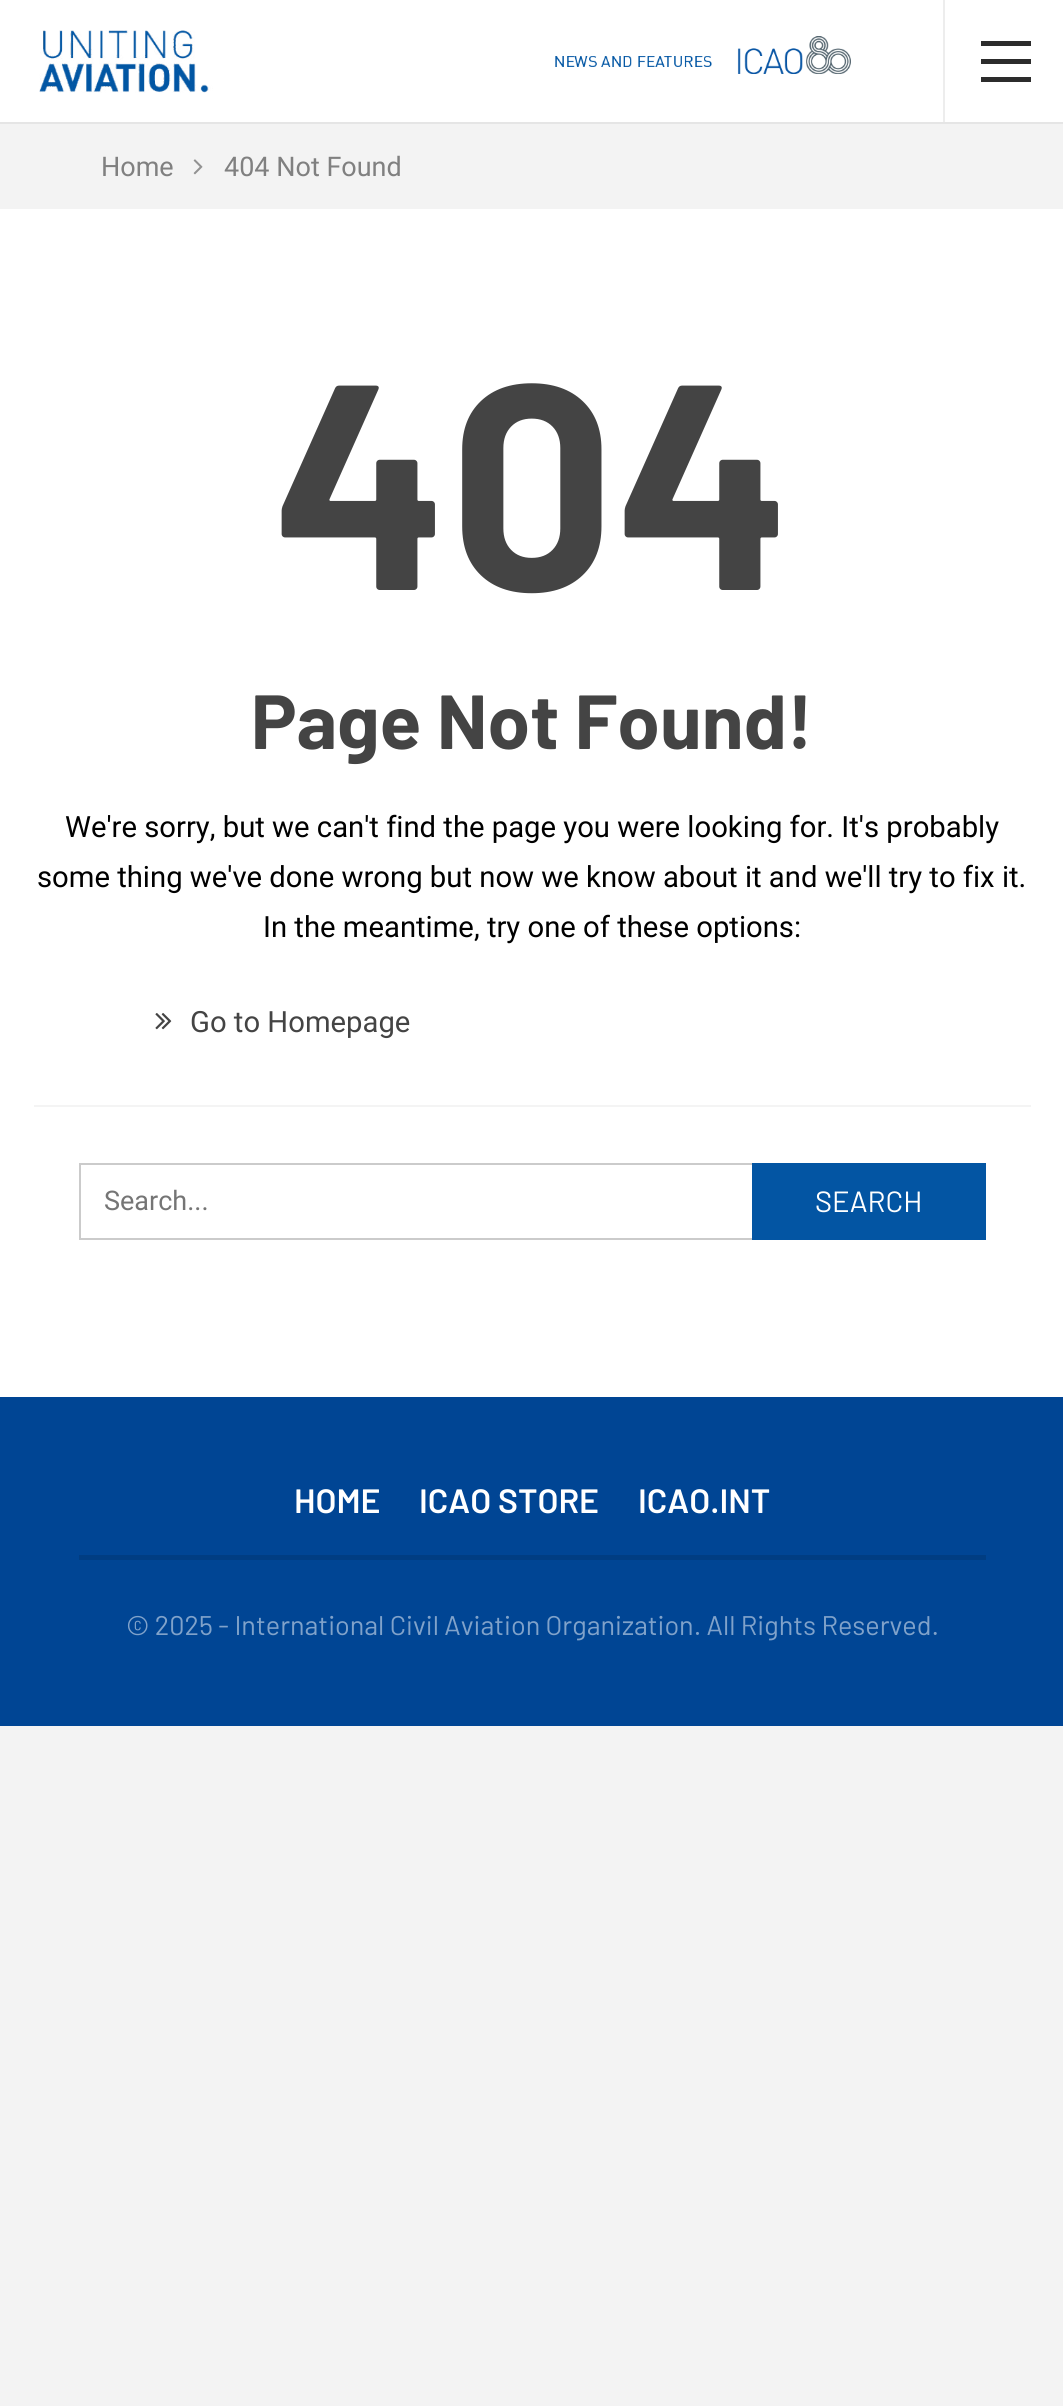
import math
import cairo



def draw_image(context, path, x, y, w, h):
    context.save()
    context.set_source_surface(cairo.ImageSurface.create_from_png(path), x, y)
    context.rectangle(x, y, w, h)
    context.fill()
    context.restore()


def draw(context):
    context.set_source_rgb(243 / 255, 243 / 255, 243 / 255)
    context.paint()
    context.set_source_rgb(1, 1, 1)
    context.rectangle(0, 0, 1063, 122)
    context.fill()
    context.set_source_rgb(229 / 255, 229 / 255, 229 / 255)
    context.rectangle(0, 122, 1063, 2)
    context.fill()
    draw_image(context, "images/1.png", 39, 30, 812, 63)
    context.set_source_rgb(237 / 255, 237 / 255, 237 / 255)
    context.rectangle(943, 0, 2, 122)
    context.fill()
    context.set_source_rgb(44 / 255, 44 / 255, 44 / 255)
    context.rectangle(981, 59, 50, 5)
    context.fill()
    context.rectangle(981, 41, 50, 5)
    context.fill()
    context.rectangle(981, 77, 50, 5)
    context.fill()
    context.set_source_rgb(1, 1, 1)
    context.rectangle(0, 209, 1063, 1188)
    context.fill()
    draw_image(context, "images/2.png", 193, 159, 10, 16)
    draw_image(context, "images/3.png", 155, 1013, 17, 17)
    context.set_source_rgb(244 / 255, 244 / 255, 244 / 255)
    context.rectangle(34, 1105, 997, 2)
    context.fill()
    context.rectangle(80, 1164, 905, 75)
    context.set_source_rgb(203 / 255, 203 / 255, 203 / 255)
    context.stroke()
    context.set_source_rgb(3 / 255, 85 / 255, 163 / 255)
    context.rectangle(752, 1163, 234, 77)
    context.fill()
    context.set_source_rgb(0, 69 / 255, 148 / 255)
    context.rectangle(0, 1397, 1063, 329)
    context.fill()
    context.set_source_rgb(0, 61 / 255, 130 / 255)
    context.rectangle(79, 1555, 907, 5)
    context.fill()
    context.select_font_face("Roboto")
    context.set_font_size(27)
    context.set_source_rgb(128 / 255, 128 / 255, 128 / 255)
    context.move_to(101, 176)
    context.show_text("Home")
    context.move_to(224, 176)
    context.show_text("404 Not Found")
    context.select_font_face("Barlow", cairo.FontSlant.NORMAL, cairo.FontWeight.BOLD)
    context.set_font_size(292)
    context.set_source_rgb(68 / 255, 68 / 255, 68 / 255)
    context.move_to(272, 590)
    context.show_text("404")
    context.set_font_size(76.5)
    context.move_to(251, 749)
    context.show_text("Page Not Found!")
    context.select_font_face("Roboto")
    context.set_font_size(29.25)
    context.set_source_rgb(0, 0, 0)
    context.move_to(65, 837)
    context.show_text("We're sorry, but we can't find the page you were looking for. It's probably")
    context.move_to(37, 887)
    context.show_text("some thing we've done wrong but now we know about it and we'll try to fix it.")
    context.move_to(263, 937)
    context.show_text("In the meantime, try one of these options:")
    context.set_source_rgb(68 / 255, 68 / 255, 68 / 255)
    context.move_to(190, 1032)
    context.show_text("Go to Homepage")
    context.set_font_size(27)
    context.set_source_rgb(117 / 255, 117 / 255, 117 / 255)
    context.move_to(104, 1210)
    context.show_text("Search...")
    context.select_font_face("Barlow")
    context.set_font_size(29.25)
    context.set_source_rgb(1, 1, 1)
    context.move_to(815, 1212)
    context.show_text("SEARCH")
    context.select_font_face("Barlow SemiBold")
    context.set_font_size(33.75)
    context.move_to(294, 1513)
    context.show_text("HOME")
    context.move_to(419, 1513)
    context.show_text("ICAO STORE")
    context.move_to(638, 1513)
    context.show_text("ICAO.INT")
    context.select_font_face("Barlow")
    context.set_font_size(27)
    context.set_source_rgb(128 / 255, 162 / 255, 202 / 255)
    context.move_to(126, 1635)
    context.show_text("© 2025 - International Civil Aviation Organization. All Rights Reserved.")


surface = cairo.ImageSurface(cairo.Format.RGB24, 1063, 2406)
context = cairo.Context(surface)
options = cairo.FontOptions()
options.set_hint_metrics(cairo.HintMetrics.OFF)
options.set_hint_style(cairo.HintStyle.NONE)
context.set_font_options(options)
context.set_miter_limit(4)
draw(context)
surface.write_to_png("out.png")
